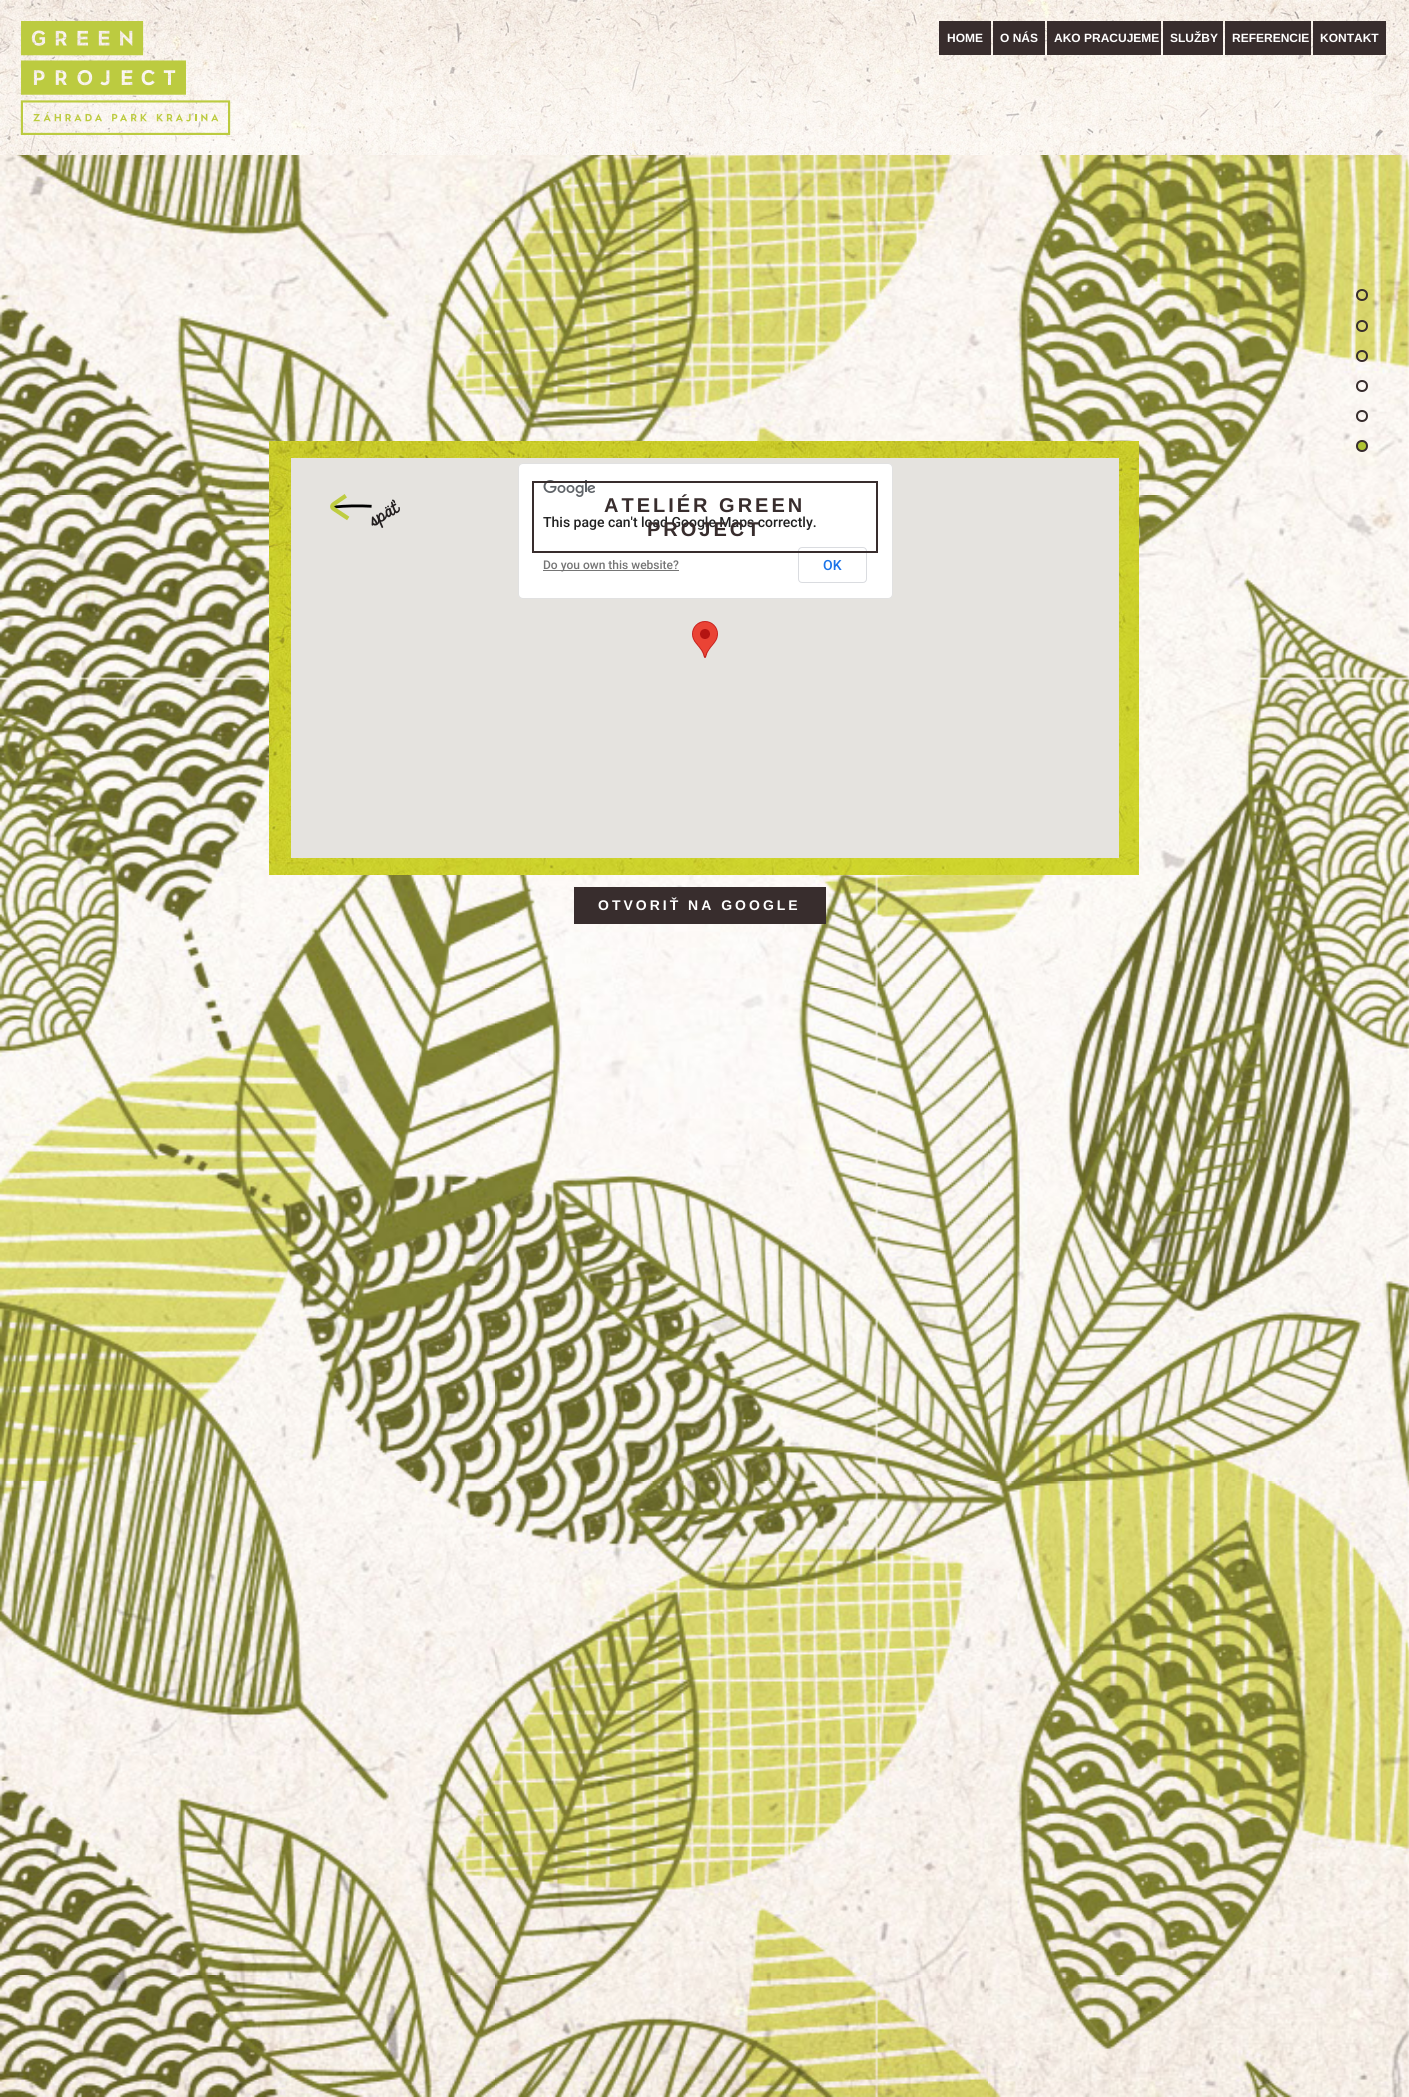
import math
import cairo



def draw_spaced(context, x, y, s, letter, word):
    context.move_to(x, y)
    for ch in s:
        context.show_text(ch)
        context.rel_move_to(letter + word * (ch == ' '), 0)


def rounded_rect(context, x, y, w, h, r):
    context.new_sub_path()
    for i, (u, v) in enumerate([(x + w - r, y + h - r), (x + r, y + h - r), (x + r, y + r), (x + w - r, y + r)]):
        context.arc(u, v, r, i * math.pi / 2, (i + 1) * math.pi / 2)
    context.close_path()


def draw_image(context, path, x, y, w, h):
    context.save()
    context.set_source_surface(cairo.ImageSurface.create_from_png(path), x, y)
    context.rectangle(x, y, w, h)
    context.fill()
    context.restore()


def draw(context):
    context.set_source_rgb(1, 1, 1)
    context.paint()
    draw_image(context, "images/1.png", 0, 155, 1409, 1942)
    draw_image(context, "images/2.png", 0, 0, 1409, 155)
    draw_image(context, "images/3.png", 20, 21, 211, 114)
    context.set_source_rgb(56 / 255, 45 / 255, 45 / 255)
    context.rectangle(939, 21, 52, 34)
    context.fill()
    context.rectangle(993, 21, 52, 34)
    context.fill()
    context.rectangle(1047, 21, 114, 34)
    context.fill()
    context.rectangle(1163, 21, 60, 34)
    context.fill()
    context.rectangle(1225, 21, 86, 34)
    context.fill()
    context.rectangle(1313, 21, 73, 34)
    context.fill()
    context.arc(1362, 295, 5, 0, 2 * math.pi)
    context.stroke()
    context.arc(1362, 326, 5, 0, 2 * math.pi)
    context.stroke()
    context.arc(1362, 356, 5, 0, 2 * math.pi)
    context.stroke()
    context.arc(1362, 386, 5, 0, 2 * math.pi)
    context.stroke()
    context.arc(1362, 416, 5, 0, 2 * math.pi)
    context.stroke()
    context.set_source_rgb(175 / 255, 195 / 255, 50 / 255)
    context.arc(1362, 446, 5, 0, 2 * math.pi)
    context.fill_preserve()
    context.set_source_rgb(56 / 255, 45 / 255, 45 / 255)
    context.stroke()
    draw_image(context, "images/4.png", 269, 441, 870, 434)
    context.set_source_rgb(229 / 255, 227 / 255, 223 / 255)
    context.rectangle(291, 458, 828, 400)
    context.fill()
    draw_image(context, "images/5.png", 330, 494, 70, 34)
    context.set_source_rgb(1, 1, 1)
    rounded_rect(context, 518, 463, 375, 136, 5)
    context.fill()
    rounded_rect(context, 518.5, 463.5, 374, 135, 4.5)
    context.set_source_rgba(0, 0, 0, 0.12)
    context.set_line_width(1)
    context.stroke()
    draw_image(context, "images/7.png", 543, 480, 52, 17)
    rounded_rect(context, 798.5, 547.5, 68, 35, 3.5)
    context.set_source_rgb(218 / 255, 220 / 255, 224 / 255)
    context.stroke()
    context.rectangle(533, 482, 344, 70)
    context.set_source_rgb(56 / 255, 45 / 255, 45 / 255)
    context.set_line_width(2)
    context.stroke()
    draw_image(context, "images/6.png", 692, 621, 26, 37)
    context.set_source_rgb(117 / 255, 117 / 255, 117 / 255)
    context.rectangle(543, 570, 136, 1)
    context.fill()
    context.set_source_rgb(56 / 255, 45 / 255, 45 / 255)
    context.rectangle(574, 887, 252, 37)
    context.fill()
    context.select_font_face("Liberation Sans", cairo.FontSlant.NORMAL, cairo.FontWeight.BOLD)
    context.set_font_size(12)
    context.set_source_rgb(1, 1, 1)
    context.move_to(947, 42)
    context.show_text("HOME")
    context.move_to(1000, 42)
    context.show_text("O NÁS")
    context.move_to(1054, 42)
    context.show_text("AKO PRACUJEME")
    context.move_to(1170, 42)
    context.show_text("SLUŽBY")
    context.move_to(1232, 42)
    context.show_text("REFERENCIE")
    context.move_to(1320, 42)
    context.show_text("KONTAKT")
    context.set_font_size(20)
    context.set_source_rgb(56 / 255, 45 / 255, 45 / 255)
    draw_spaced(context, 604, 512, "ATELIÉR GREEN", 3, 0)
    context.select_font_face("Roboto Medium")
    context.set_font_size(14)
    context.set_source_rgb(33 / 255, 33 / 255, 33 / 255)
    context.move_to(543, 527)
    context.show_text("This page can't load Google Maps correctly.")
    context.select_font_face("Liberation Sans", cairo.FontSlant.NORMAL, cairo.FontWeight.BOLD)
    context.set_font_size(20)
    context.set_source_rgb(56 / 255, 45 / 255, 45 / 255)
    draw_spaced(context, 647, 536, "PROJECT", 3, 0)
    context.select_font_face("Roboto Medium")
    context.set_font_size(12)
    context.set_source_rgb(117 / 255, 117 / 255, 117 / 255)
    context.move_to(543, 569)
    context.show_text("Do you own this website?")
    context.set_font_size(14)
    context.set_source_rgb(26 / 255, 115 / 255, 232 / 255)
    context.move_to(823, 570)
    context.show_text("OK")
    context.select_font_face("Liberation Sans", cairo.FontSlant.NORMAL, cairo.FontWeight.BOLD)
    context.set_source_rgb(1, 1, 1)
    draw_spaced(context, 598, 910, "OTVORIŤ NA GOOGLE", 3, 0)


surface = cairo.ImageSurface(cairo.Format.RGB24, 1409, 2097)
context = cairo.Context(surface)
options = cairo.FontOptions()
options.set_hint_metrics(cairo.HintMetrics.OFF)
options.set_hint_style(cairo.HintStyle.NONE)
context.set_font_options(options)
context.set_miter_limit(4)
draw(context)
surface.write_to_png("out.png")
